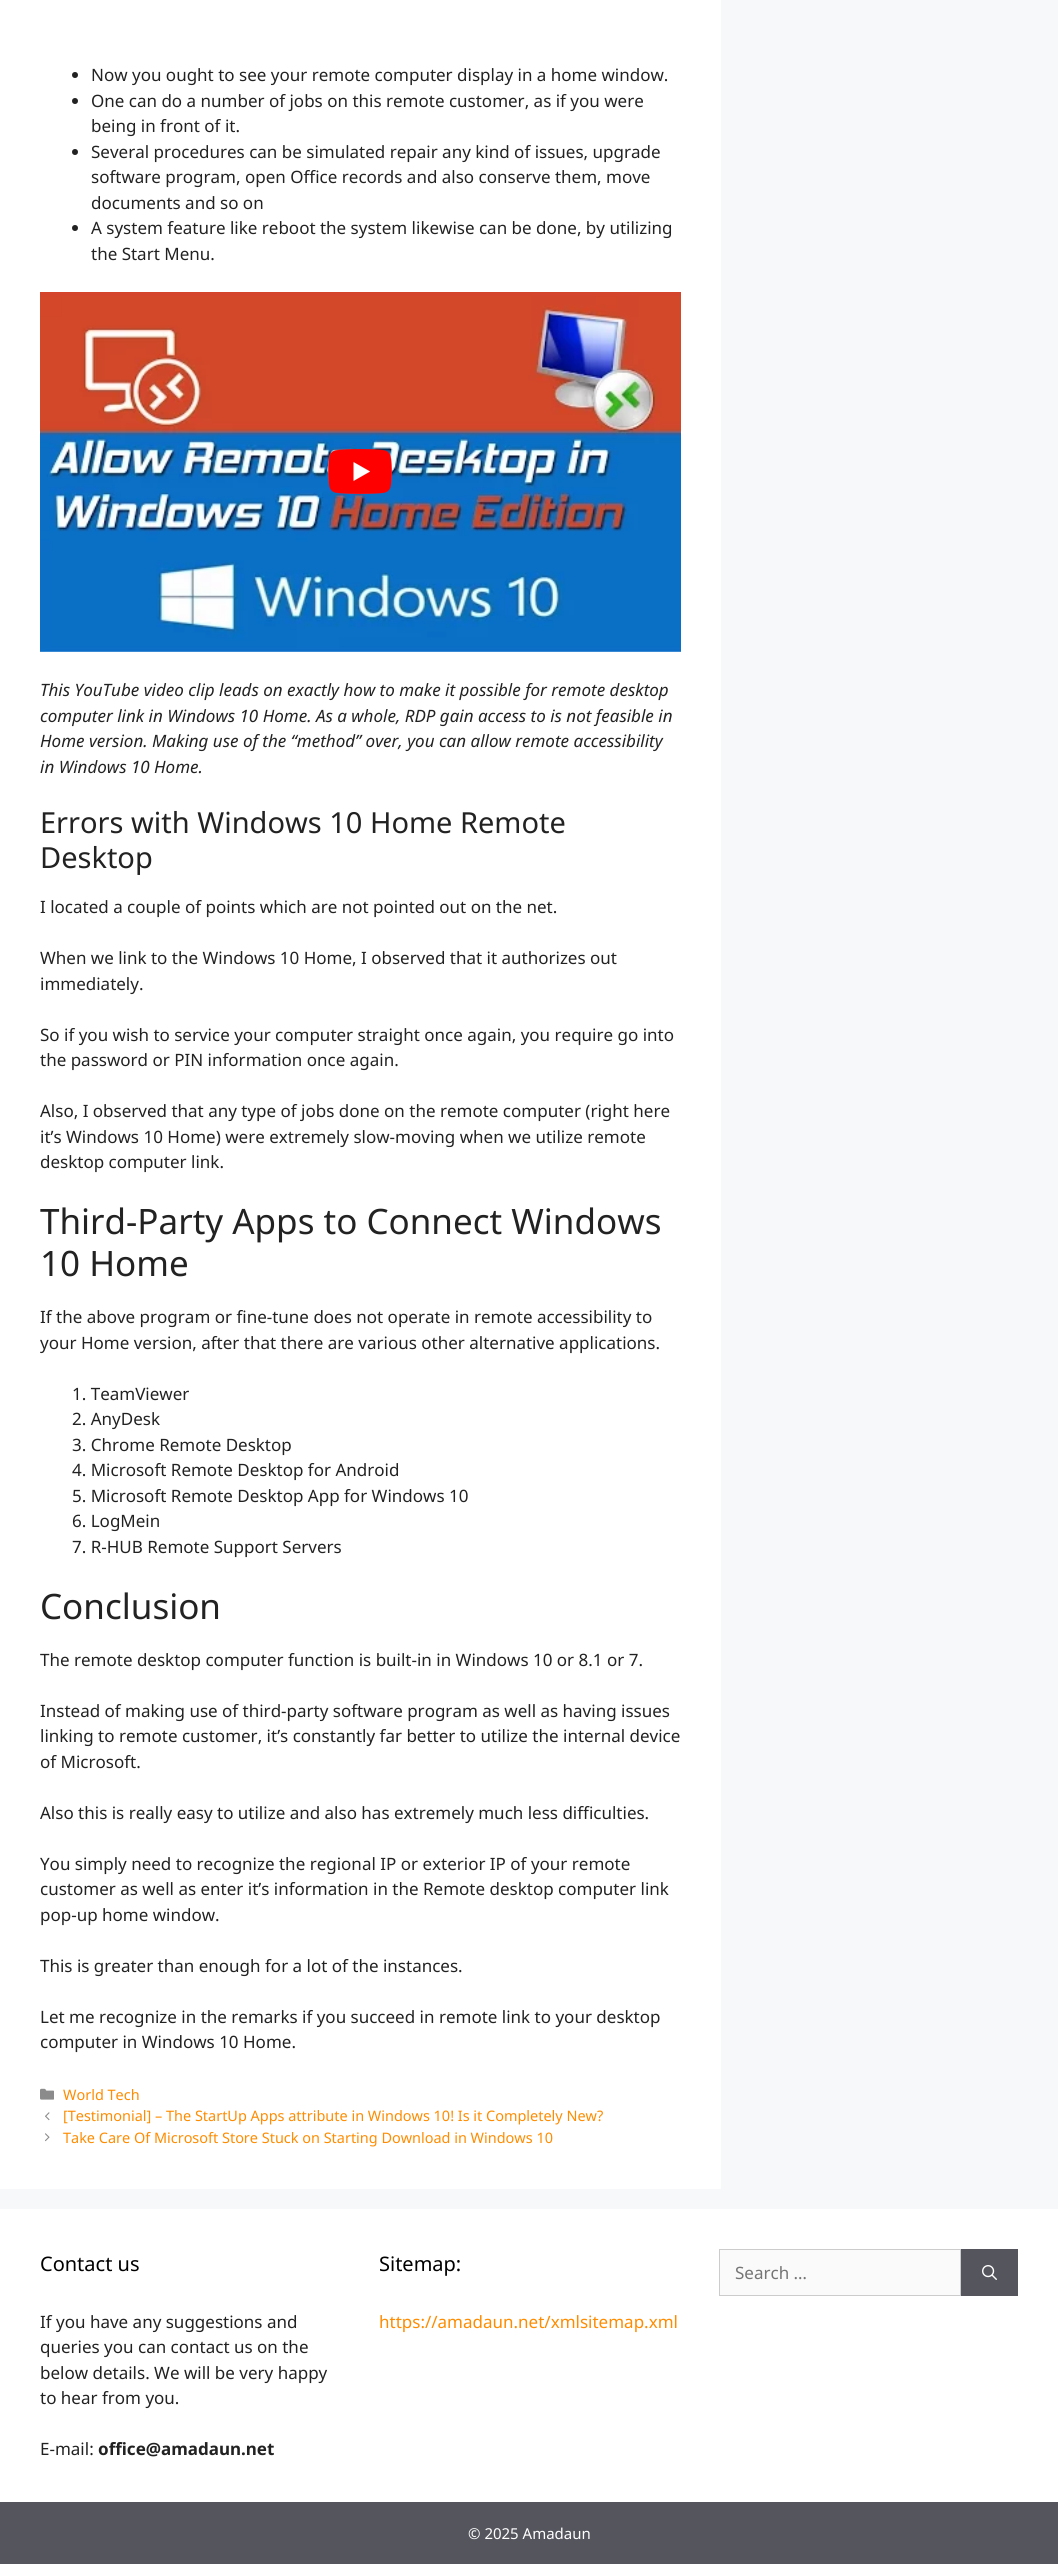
import math
import cairo



def draw_image(context, path, x, y, w, h):
    context.save()
    context.set_source_surface(cairo.ImageSurface.create_from_png(path), x, y)
    context.rectangle(x, y, w, h)
    context.fill()
    context.restore()


def draw(context):
    context.set_source_rgb(247 / 255, 248 / 255, 249 / 255)
    context.paint()
    context.set_source_rgb(1, 1, 1)
    context.rectangle(0, 0, 721, 2189)
    context.fill()
    context.set_source_rgb(34 / 255, 34 / 255, 34 / 255)
    context.arc(75, 75, 3, 0, 2 * math.pi)
    context.fill()
    context.arc(75, 101, 3, 0, 2 * math.pi)
    context.fill()
    context.arc(75, 152, 3, 0, 2 * math.pi)
    context.fill()
    context.arc(75, 228, 3, 0, 2 * math.pi)
    context.fill()
    draw_image(context, "images/1.png", 40, 292, 641, 360)
    draw_image(context, "images/2.png", 328, 449, 64, 45)
    draw_image(context, "images/3.png", 40, 2088, 14, 12)
    draw_image(context, "images/4.png", 45, 2112, 5, 9)
    draw_image(context, "images/5.png", 45, 2133, 5, 9)
    context.set_source_rgb(1, 1, 1)
    context.rectangle(0, 2209, 1058, 293)
    context.fill()
    context.set_source_rgb(250 / 255, 250 / 255, 250 / 255)
    context.rectangle(719.5, 2249.5, 241, 46)
    context.fill_preserve()
    context.set_source_rgb(204 / 255, 204 / 255, 204 / 255)
    context.set_line_width(1)
    context.stroke()
    context.set_source_rgb(85 / 255, 85 / 255, 94 / 255)
    context.rectangle(961, 2249, 57, 47)
    context.fill()
    draw_image(context, "images/6.png", 982, 2265, 15, 15)
    context.rectangle(0, 2502, 1058, 62)
    context.fill()
    context.select_font_face("Noto Sans")
    context.set_font_size(17)
    context.set_source_rgb(34 / 255, 34 / 255, 34 / 255)
    context.move_to(91, 81)
    context.show_text("Now you ought to see your remote computer display in a home window.")
    context.move_to(91, 107)
    context.show_text("One can do a number of jobs on this remote customer, as if you were")
    context.move_to(91, 132)
    context.show_text("being in front of it.")
    context.move_to(91, 158)
    context.show_text("Several procedures can be simulated repair any kind of issues, upgrade")
    context.move_to(91, 183)
    context.show_text("software program, open Office records and also conserve them, move")
    context.move_to(91, 209)
    context.show_text("documents and so on")
    context.move_to(91, 234)
    context.show_text("A system feature like reboot the system likewise can be done, by utilizing")
    context.move_to(91, 260)
    context.show_text("the Start Menu.")
    context.select_font_face("Noto Sans", cairo.FontSlant.ITALIC)
    context.move_to(40, 696)
    context.show_text("This YouTube video clip leads on exactly how to make it possible for remote desktop")
    context.move_to(40, 722)
    context.show_text("computer link in Windows 10 Home. As a whole, RDP gain access to is not feasible in")
    context.move_to(40, 747)
    context.show_text("Home version. Making use of the “method” over, you can allow remote accessibility")
    context.move_to(40, 773)
    context.show_text("in Windows 10 Home.")
    context.select_font_face("Noto Sans")
    context.set_font_size(29)
    context.move_to(40, 833)
    context.show_text("Errors with Windows 10 Home Remote")
    context.move_to(40, 868)
    context.show_text("Desktop")
    context.set_font_size(17)
    context.move_to(40, 913)
    context.show_text("I located a couple of points which are not pointed out on the net.")
    context.move_to(40, 964)
    context.show_text("When we link to the Windows 10 Home, I observed that it authorizes out")
    context.move_to(40, 990)
    context.show_text("immediately.")
    context.move_to(40, 1041)
    context.show_text("So if you wish to service your computer straight once again, you require go into")
    context.move_to(40, 1066)
    context.show_text("the password or PIN information once again.")
    context.move_to(40, 1117)
    context.show_text("Also, I observed that any type of jobs done on the remote computer (right here")
    context.move_to(40, 1143)
    context.show_text("it’s Windows 10 Home) were extremely slow-moving when we utilize remote")
    context.move_to(40, 1168)
    context.show_text("desktop computer link.")
    context.set_font_size(35)
    context.move_to(40, 1234)
    context.show_text("Third-Party Apps to Connect Windows")
    context.move_to(40, 1276)
    context.show_text("10 Home")
    context.set_font_size(17)
    context.move_to(40, 1323)
    context.show_text("If the above program or fine-tune does not operate in remote accessibility to")
    context.move_to(40, 1349)
    context.show_text("your Home version, after that there are various other alternative applications.")
    context.move_to(72, 1400)
    context.show_text("1. TeamViewer")
    context.move_to(72, 1425)
    context.show_text("2. AnyDesk")
    context.move_to(72, 1451)
    context.show_text("3. Chrome Remote Desktop")
    context.move_to(72, 1476)
    context.show_text("4. Microsoft Remote Desktop for Android")
    context.move_to(72, 1502)
    context.show_text("5. Microsoft Remote Desktop App for Windows 10")
    context.move_to(72, 1527)
    context.show_text("6. LogMein")
    context.move_to(72, 1553)
    context.show_text("7. R-HUB Remote Support Servers")
    context.set_font_size(35)
    context.move_to(40, 1619)
    context.show_text("Conclusion")
    context.set_font_size(17)
    context.move_to(40, 1666)
    context.show_text("The remote desktop computer function is built-in in Windows 10 or 8.1 or 7.")
    context.move_to(40, 1717)
    context.show_text("Instead of making use of third-party software program as well as having issues")
    context.move_to(40, 1742)
    context.show_text("linking to remote customer, it’s constantly far better to utilize the internal device")
    context.move_to(40, 1768)
    context.show_text("of Microsoft.")
    context.move_to(40, 1819)
    context.show_text("Also this is really easy to utilize and also has extremely much less difficulties.")
    context.move_to(40, 1870)
    context.show_text("You simply need to recognize the regional IP or exterior IP of your remote")
    context.move_to(40, 1895)
    context.show_text("customer as well as enter it’s information in the Remote desktop computer link")
    context.move_to(40, 1921)
    context.show_text("pop-up home window.")
    context.move_to(40, 1972)
    context.show_text("This is greater than enough for a lot of the instances.")
    context.move_to(40, 2023)
    context.show_text("Let me recognize in the remarks if you succeed in remote link to your desktop")
    context.move_to(40, 2048)
    context.show_text("computer in Windows 10 Home.")
    context.set_font_size(14.45)
    context.set_source_rgb(1, 140 / 255, 0)
    context.move_to(63, 2100)
    context.show_text("World Tech")
    context.move_to(63, 2121)
    context.show_text("[Testimonial] – The StartUp Apps attribute in Windows 10! Is it Completely New?")
    context.move_to(63, 2143)
    context.show_text("Take Care Of Microsoft Store Stuck on Starting Download in Windows 10")
    context.set_font_size(20)
    context.set_source_rgb(0, 0, 0)
    context.move_to(40, 2271)
    context.show_text("Contact us")
    context.set_font_size(17)
    context.set_source_rgb(34 / 255, 34 / 255, 34 / 255)
    context.move_to(40, 2328)
    context.show_text("If you have any suggestions and")
    context.move_to(40, 2353)
    context.show_text("queries you can contact us on the")
    context.move_to(40, 2379)
    context.show_text("below details. We will be very happy")
    context.move_to(40, 2404)
    context.show_text("to hear from you.")
    context.move_to(40, 2455)
    context.show_text("E-mail:")
    context.select_font_face("Noto Sans", cairo.FontSlant.NORMAL, cairo.FontWeight.BOLD)
    context.move_to(98, 2455)
    context.show_text("office@amadaun.net")
    context.select_font_face("Noto Sans")
    context.set_font_size(20)
    context.set_source_rgb(0, 0, 0)
    context.move_to(379, 2271)
    context.show_text("Sitemap:")
    context.set_font_size(17)
    context.set_source_rgb(1, 140 / 255, 0)
    context.move_to(379, 2328)
    context.show_text("https://amadaun.net/xmlsitemap.xml")
    context.set_source_rgb(117 / 255, 117 / 255, 117 / 255)
    context.move_to(735, 2279)
    context.show_text("Search …")
    context.set_font_size(15)
    context.set_source_rgb(1, 1, 1)
    context.move_to(468, 2539)
    context.show_text("© 2025 Amadaun")


surface = cairo.ImageSurface(cairo.Format.RGB24, 1058, 2564)
context = cairo.Context(surface)
options = cairo.FontOptions()
options.set_hint_metrics(cairo.HintMetrics.OFF)
options.set_hint_style(cairo.HintStyle.NONE)
context.set_font_options(options)
context.set_miter_limit(4)
draw(context)
surface.write_to_png("out.png")
